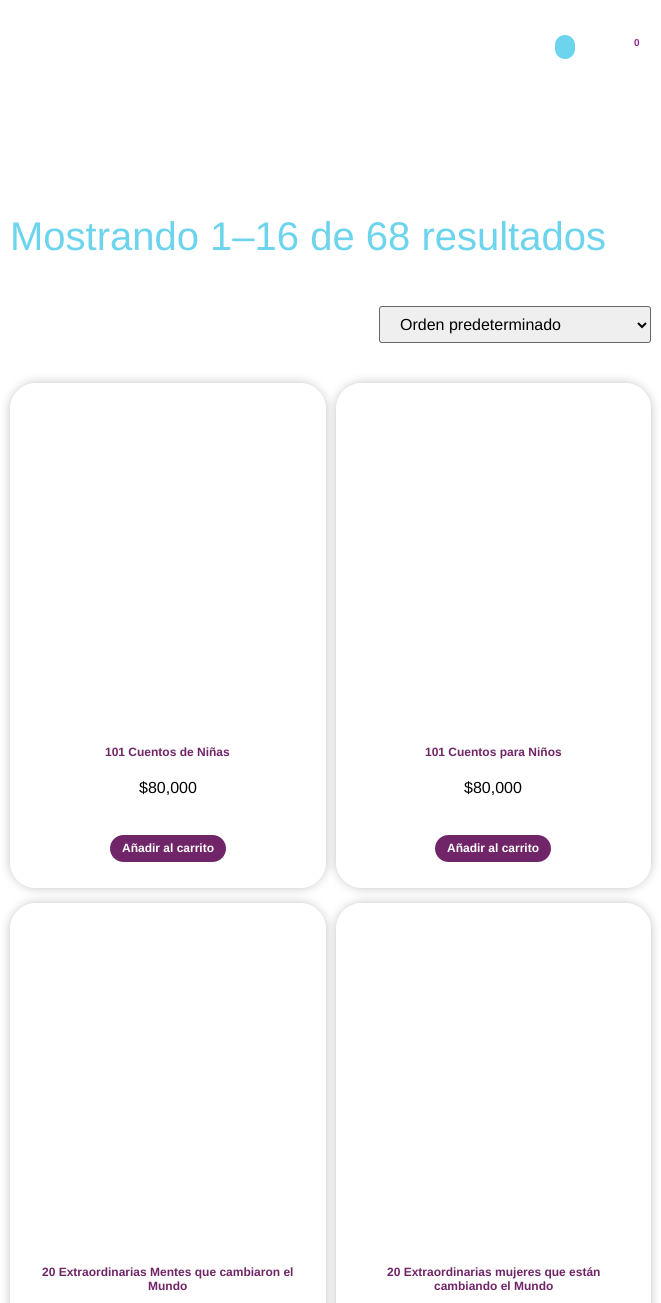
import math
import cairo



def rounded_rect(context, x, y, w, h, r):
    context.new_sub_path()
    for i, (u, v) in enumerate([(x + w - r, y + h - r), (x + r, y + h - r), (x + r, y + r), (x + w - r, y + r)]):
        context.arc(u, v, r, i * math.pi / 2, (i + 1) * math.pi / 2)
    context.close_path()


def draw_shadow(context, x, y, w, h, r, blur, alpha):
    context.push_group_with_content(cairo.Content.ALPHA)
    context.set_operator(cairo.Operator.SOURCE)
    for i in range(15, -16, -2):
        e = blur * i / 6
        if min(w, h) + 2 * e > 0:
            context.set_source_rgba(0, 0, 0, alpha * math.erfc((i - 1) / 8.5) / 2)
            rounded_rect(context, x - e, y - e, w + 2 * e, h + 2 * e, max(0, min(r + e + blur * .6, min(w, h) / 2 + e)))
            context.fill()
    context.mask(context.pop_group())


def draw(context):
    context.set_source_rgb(1, 1, 1)
    context.paint()
    context.set_source_rgb(109 / 255, 212 / 255, 237 / 255)
    rounded_rect(context, 555, 35, 20, 24, 10)
    context.fill()
    context.set_source_rgb(239 / 255, 239 / 255, 239 / 255)
    rounded_rect(context, 379.5, 306.5, 271, 36, 2.5)
    context.fill_preserve()
    context.set_source_rgb(102 / 255, 102 / 255, 102 / 255)
    context.set_line_width(1)
    context.stroke()
    context.new_path()
    context.move_to(638, 323)
    context.line_to(642, 327)
    context.line_to(646, 323)
    context.set_source_rgb(0, 0, 0)
    context.set_line_width(2)
    context.stroke()
    context.save()
    context.set_fill_rule(cairo.FillRule.EVEN_ODD)
    context.new_path()
    context.move_to(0, 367)
    context.line_to(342, 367)
    context.line_to(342, 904)
    context.line_to(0, 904)
    context.close_path()
    context.move_to(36, 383)
    context.line_to(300, 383)
    context.curve_to(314.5, 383, 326, 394.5, 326, 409)
    context.line_to(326, 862)
    context.curve_to(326, 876.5, 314.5, 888, 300, 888)
    context.line_to(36, 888)
    context.curve_to(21.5, 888, 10, 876.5, 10, 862)
    context.line_to(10, 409)
    context.curve_to(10, 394.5, 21.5, 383, 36, 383)
    context.close_path()
    context.clip()
    context.set_source_rgb(133 / 255, 133 / 255, 133 / 255)
    draw_shadow(context, 10, 383, 316, 505, 26, 5, 0.5)
    context.restore()
    context.set_source_rgb(112 / 255, 37 / 255, 104 / 255)
    rounded_rect(context, 110, 835, 116, 27, 13.5)
    context.fill()
    context.save()
    context.set_fill_rule(cairo.FillRule.EVEN_ODD)
    context.new_path()
    context.move_to(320, 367)
    context.line_to(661, 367)
    context.line_to(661, 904)
    context.line_to(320, 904)
    context.close_path()
    context.move_to(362, 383)
    context.line_to(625, 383)
    context.curve_to(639.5, 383, 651, 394.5, 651, 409)
    context.line_to(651, 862)
    context.curve_to(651, 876.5, 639.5, 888, 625, 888)
    context.line_to(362, 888)
    context.curve_to(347.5, 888, 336, 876.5, 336, 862)
    context.line_to(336, 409)
    context.curve_to(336, 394.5, 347.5, 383, 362, 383)
    context.close_path()
    context.clip()
    context.set_source_rgb(133 / 255, 133 / 255, 133 / 255)
    draw_shadow(context, 336, 383, 315, 505, 26, 5, 0.5)
    context.restore()
    rounded_rect(context, 435, 835, 116, 27, 13.5)
    context.fill()
    context.save()
    context.set_fill_rule(cairo.FillRule.EVEN_ODD)
    context.new_path()
    context.move_to(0, 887)
    context.line_to(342, 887)
    context.line_to(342, 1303)
    context.line_to(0, 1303)
    context.close_path()
    context.move_to(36, 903)
    context.line_to(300, 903)
    context.curve_to(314.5, 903, 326, 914.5, 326, 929)
    context.line_to(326, 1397)
    context.curve_to(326, 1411.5, 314.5, 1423, 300, 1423)
    context.line_to(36, 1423)
    context.curve_to(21.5, 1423, 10, 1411.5, 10, 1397)
    context.line_to(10, 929)
    context.curve_to(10, 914.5, 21.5, 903, 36, 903)
    context.close_path()
    context.clip()
    context.set_source_rgb(133 / 255, 133 / 255, 133 / 255)
    draw_shadow(context, 10, 903, 316, 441, 26, 5, 0.5)
    context.restore()
    context.save()
    context.set_fill_rule(cairo.FillRule.EVEN_ODD)
    context.new_path()
    context.move_to(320, 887)
    context.line_to(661, 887)
    context.line_to(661, 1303)
    context.line_to(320, 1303)
    context.close_path()
    context.move_to(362, 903)
    context.line_to(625, 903)
    context.curve_to(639.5, 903, 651, 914.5, 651, 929)
    context.line_to(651, 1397)
    context.curve_to(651, 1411.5, 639.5, 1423, 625, 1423)
    context.line_to(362, 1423)
    context.curve_to(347.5, 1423, 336, 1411.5, 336, 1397)
    context.line_to(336, 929)
    context.curve_to(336, 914.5, 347.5, 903, 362, 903)
    context.close_path()
    context.clip()
    context.set_source_rgb(133 / 255, 133 / 255, 133 / 255)
    draw_shadow(context, 336, 903, 315, 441, 26, 5, 0.5)
    context.restore()
    context.select_font_face("Liberation Sans", cairo.FontSlant.NORMAL, cairo.FontWeight.BOLD)
    context.set_font_size(10)
    context.set_source_rgb(148 / 255, 36 / 255, 144 / 255)
    context.move_to(634, 46)
    context.show_text("0")
    context.select_font_face("Liberation Sans")
    context.set_font_size(40)
    context.set_source_rgb(109 / 255, 212 / 255, 237 / 255)
    context.move_to(10, 250)
    context.show_text("Mostrando 1–16 de 68 resultados")
    context.set_font_size(16)
    context.set_source_rgb(0, 0, 0)
    context.move_to(400, 330)
    context.show_text("Orden predeterminado")
    context.select_font_face("Liberation Sans", cairo.FontSlant.NORMAL, cairo.FontWeight.BOLD)
    context.set_font_size(12)
    context.set_source_rgb(112 / 255, 37 / 255, 104 / 255)
    context.move_to(105, 756)
    context.show_text("101 Cuentos de Niñas")
    context.select_font_face("Liberation Sans")
    context.set_font_size(16)
    context.set_source_rgb(0, 0, 0)
    context.move_to(139, 793)
    context.show_text("$80,000")
    context.select_font_face("Liberation Sans", cairo.FontSlant.NORMAL, cairo.FontWeight.BOLD)
    context.set_font_size(12)
    context.set_source_rgb(1, 1, 1)
    context.move_to(122, 852)
    context.show_text("Añadir al carrito")
    context.set_source_rgb(112 / 255, 37 / 255, 104 / 255)
    context.move_to(425, 756)
    context.show_text("101 Cuentos para Niños")
    context.select_font_face("Liberation Sans")
    context.set_font_size(16)
    context.set_source_rgb(0, 0, 0)
    context.move_to(464, 793)
    context.show_text("$80,000")
    context.select_font_face("Liberation Sans", cairo.FontSlant.NORMAL, cairo.FontWeight.BOLD)
    context.set_font_size(12)
    context.set_source_rgb(1, 1, 1)
    context.move_to(447, 852)
    context.show_text("Añadir al carrito")
    context.set_source_rgb(112 / 255, 37 / 255, 104 / 255)
    context.move_to(42, 1276)
    context.show_text("20 Extraordinarias Mentes que cambiaron el")
    context.move_to(148, 1290)
    context.show_text("Mundo")
    context.move_to(387, 1276)
    context.show_text("20 Extraordinarias mujeres que están")
    context.move_to(434, 1290)
    context.show_text("cambiando el Mundo")


surface = cairo.ImageSurface(cairo.Format.RGB24, 661, 1303)
context = cairo.Context(surface)
options = cairo.FontOptions()
options.set_hint_metrics(cairo.HintMetrics.OFF)
options.set_hint_style(cairo.HintStyle.NONE)
context.set_font_options(options)
context.set_miter_limit(4)
draw(context)
surface.write_to_png("out.png")
